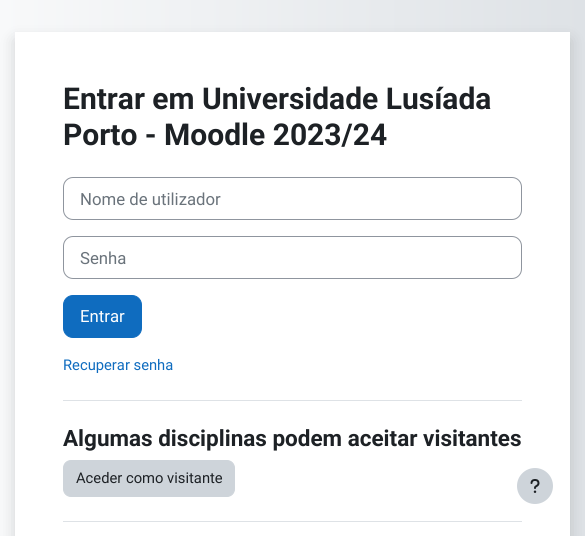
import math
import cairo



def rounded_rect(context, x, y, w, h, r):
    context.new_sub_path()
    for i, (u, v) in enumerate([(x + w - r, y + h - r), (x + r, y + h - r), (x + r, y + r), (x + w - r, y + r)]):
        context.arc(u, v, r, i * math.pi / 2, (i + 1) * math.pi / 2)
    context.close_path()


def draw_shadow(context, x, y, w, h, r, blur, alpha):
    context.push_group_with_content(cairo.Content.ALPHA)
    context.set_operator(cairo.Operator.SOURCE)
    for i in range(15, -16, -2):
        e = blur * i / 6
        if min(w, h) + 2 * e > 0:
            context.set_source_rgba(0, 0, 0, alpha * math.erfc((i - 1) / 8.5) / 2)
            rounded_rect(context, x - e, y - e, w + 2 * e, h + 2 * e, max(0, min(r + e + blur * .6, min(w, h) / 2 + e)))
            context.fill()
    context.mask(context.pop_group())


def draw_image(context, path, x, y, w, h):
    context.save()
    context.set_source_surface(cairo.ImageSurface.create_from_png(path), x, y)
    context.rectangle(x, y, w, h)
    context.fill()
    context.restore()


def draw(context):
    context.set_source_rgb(1, 1, 1)
    context.paint()
    gradient = cairo.LinearGradient(0, 332, 585, 332)
    gradient.add_color_stop_rgba(0, 248 / 255, 249 / 255, 250 / 255, 1)
    gradient.add_color_stop_rgba(1, 222 / 255, 226 / 255, 230 / 255, 1)
    context.set_source(gradient)
    context.rectangle(0, 0, 585, 536)
    context.fill()
    context.set_source_rgb(0, 0, 0)
    draw_shadow(context, 15, 40, 555, 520, 0, 8, 0.15)
    context.set_source_rgb(1, 1, 1)
    context.rectangle(15, 32, 555, 504)
    context.fill()
    rounded_rect(context, 63.5, 177.5, 458, 42, 9.5)
    context.set_source_rgb(143 / 255, 149 / 255, 158 / 255)
    context.set_line_width(1)
    context.stroke()
    rounded_rect(context, 63.5, 236.5, 458, 42, 9.5)
    context.stroke()
    context.set_source_rgb(15 / 255, 108 / 255, 191 / 255)
    rounded_rect(context, 63.5, 295.5, 78, 42, 9.5)
    context.fill_preserve()
    context.stroke()
    context.set_source_rgb(222 / 255, 226 / 255, 230 / 255)
    context.rectangle(63, 400, 459, 1)
    context.fill()
    context.set_source_rgb(206 / 255, 212 / 255, 218 / 255)
    rounded_rect(context, 63.5, 460.5, 171, 36, 7.5)
    context.fill_preserve()
    context.stroke()
    context.set_source_rgb(222 / 255, 226 / 255, 230 / 255)
    context.rectangle(63, 521, 459, 1)
    context.fill()
    context.set_source_rgb(206 / 255, 212 / 255, 218 / 255)
    context.arc(535, 486, 18, 0, 2 * math.pi)
    context.fill()
    draw_image(context, "images/1.png", 530, 479, 10, 14)
    context.select_font_face("Roboto", cairo.FontSlant.NORMAL, cairo.FontWeight.BOLD)
    context.set_font_size(30)
    context.set_source_rgb(29 / 255, 33 / 255, 37 / 255)
    context.move_to(63, 109)
    context.show_text("Entrar em Universidade Lusíada")
    context.move_to(63, 145)
    context.show_text("Porto - Moodle 2023/24")
    context.select_font_face("Roboto")
    context.set_font_size(16.75)
    context.set_source_rgb(106 / 255, 115 / 255, 123 / 255)
    context.move_to(80, 205)
    context.show_text("Nome de utilizador")
    context.move_to(80, 264)
    context.show_text("Senha")
    context.set_source_rgb(1, 1, 1)
    context.move_to(80, 322)
    context.show_text("Entrar")
    context.set_font_size(14.75)
    context.set_source_rgb(15 / 255, 108 / 255, 191 / 255)
    context.move_to(63, 370)
    context.show_text("Recuperar senha")
    context.select_font_face("Roboto", cairo.FontSlant.NORMAL, cairo.FontWeight.BOLD)
    context.set_font_size(22.5)
    context.set_source_rgb(29 / 255, 33 / 255, 37 / 255)
    context.move_to(63, 446)
    context.show_text("Algumas disciplinas podem aceitar visitantes")
    context.select_font_face("Roboto")
    context.set_font_size(14.75)
    context.move_to(76, 483)
    context.show_text("Aceder como visitante")


surface = cairo.ImageSurface(cairo.Format.RGB24, 585, 536)
context = cairo.Context(surface)
options = cairo.FontOptions()
options.set_hint_metrics(cairo.HintMetrics.OFF)
options.set_hint_style(cairo.HintStyle.NONE)
context.set_font_options(options)
context.set_miter_limit(4)
draw(context)
surface.write_to_png("out.png")
